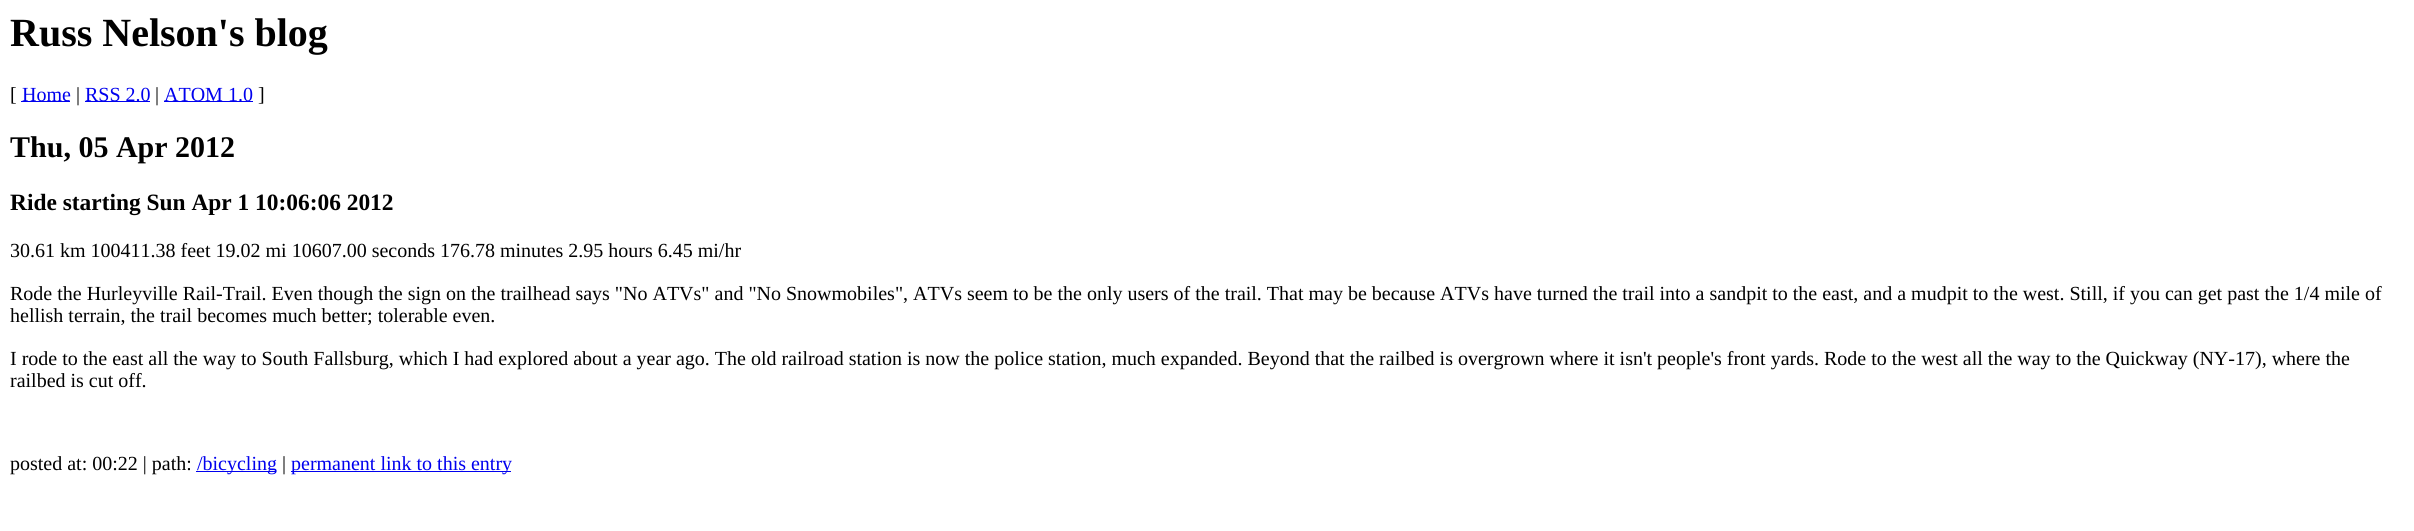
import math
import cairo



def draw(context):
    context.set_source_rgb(1, 1, 1)
    context.paint()
    context.set_source_rgb(0, 0, 238 / 255)
    context.rectangle(21, 101, 49, 1)
    context.fill()
    context.rectangle(85, 101, 65, 1)
    context.fill()
    context.rectangle(164, 101, 89, 1)
    context.fill()
    context.rectangle(196, 471, 80, 1)
    context.fill()
    context.rectangle(291, 471, 220, 1)
    context.fill()
    context.select_font_face("Liberation Serif", cairo.FontSlant.NORMAL, cairo.FontWeight.BOLD)
    context.set_font_size(40)
    context.set_source_rgb(0, 0, 0)
    context.move_to(10, 46)
    context.show_text("Russ Nelson's blog")
    context.select_font_face("Liberation Serif")
    context.set_font_size(20)
    context.move_to(10, 101)
    context.show_text("[")
    context.set_source_rgb(0, 0, 238 / 255)
    context.move_to(22, 101)
    context.show_text("Home")
    context.set_source_rgb(0, 0, 0)
    context.move_to(76, 101)
    context.show_text("|")
    context.set_source_rgb(0, 0, 238 / 255)
    context.move_to(85, 101)
    context.show_text("RSS 2.0")
    context.set_source_rgb(0, 0, 0)
    context.move_to(155, 101)
    context.show_text("|")
    context.set_source_rgb(0, 0, 238 / 255)
    context.move_to(164, 101)
    context.show_text("ATOM 1.0")
    context.set_source_rgb(0, 0, 0)
    context.move_to(258, 101)
    context.show_text("]")
    context.select_font_face("Liberation Serif", cairo.FontSlant.NORMAL, cairo.FontWeight.BOLD)
    context.set_font_size(30)
    context.move_to(10, 157)
    context.show_text("Thu, 05 Apr 2012")
    context.set_font_size(23.4)
    context.move_to(10, 210)
    context.show_text("Ride starting Sun Apr 1 10:06:06 2012")
    context.select_font_face("Liberation Serif")
    context.set_font_size(20)
    context.move_to(10, 257)
    context.show_text("30.61 km 100411.38 feet 19.02 mi 10607.00 seconds 176.78 minutes 2.95 hours 6.45 mi/hr")
    context.move_to(10, 300)
    context.show_text("Rode the Hurleyville Rail-Trail. Even though the sign on the trailhead says \"No ATVs\" and \"No Snowmobiles\", ATVs seem to be the only users of the trail. That may be because ATVs have turned the trail into a sandpit to the east, and a mudpit to the west. Still, if you can get past the 1/4 mile of")
    context.move_to(10, 322)
    context.show_text("hellish terrain, the trail becomes much better; tolerable even.")
    context.move_to(10, 365)
    context.show_text("I rode to the east all the way to South Fallsburg, which I had explored about a year ago. The old railroad station is now the police station, much expanded. Beyond that the railbed is overgrown where it isn't people's front yards. Rode to the west all the way to the Quickway (NY-17), where the")
    context.move_to(10, 387)
    context.show_text("railbed is cut off.")
    context.move_to(10, 470)
    context.show_text("posted at: 00:22 | path:")
    context.set_source_rgb(0, 0, 238 / 255)
    context.move_to(197, 470)
    context.show_text("/bicycling")
    context.set_source_rgb(0, 0, 0)
    context.move_to(282, 470)
    context.show_text("|")
    context.set_source_rgb(0, 0, 238 / 255)
    context.move_to(291, 470)
    context.show_text("permanent link to this entry")


surface = cairo.ImageSurface(cairo.Format.RGB24, 2414, 531)
context = cairo.Context(surface)
options = cairo.FontOptions()
options.set_hint_metrics(cairo.HintMetrics.OFF)
options.set_hint_style(cairo.HintStyle.NONE)
context.set_font_options(options)
context.set_miter_limit(4)
draw(context)
surface.write_to_png("out.png")
